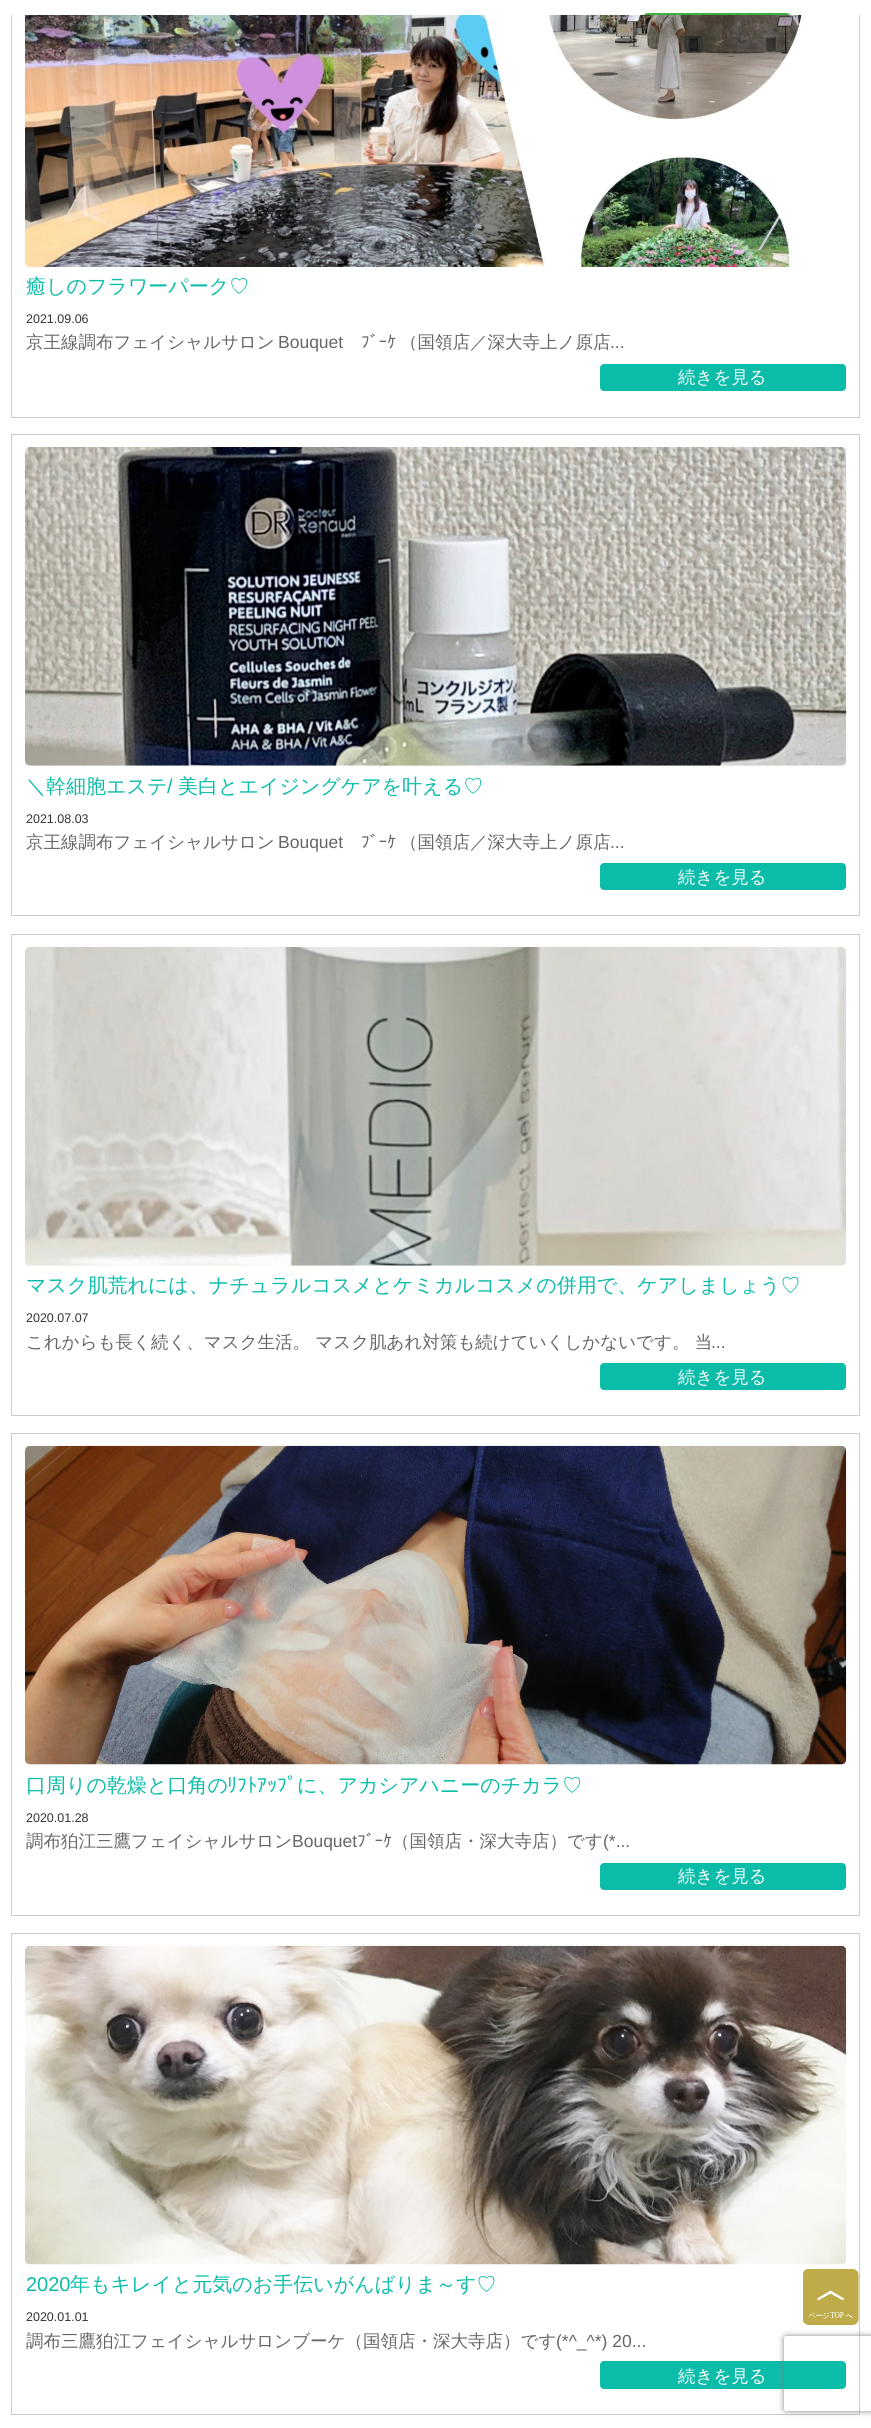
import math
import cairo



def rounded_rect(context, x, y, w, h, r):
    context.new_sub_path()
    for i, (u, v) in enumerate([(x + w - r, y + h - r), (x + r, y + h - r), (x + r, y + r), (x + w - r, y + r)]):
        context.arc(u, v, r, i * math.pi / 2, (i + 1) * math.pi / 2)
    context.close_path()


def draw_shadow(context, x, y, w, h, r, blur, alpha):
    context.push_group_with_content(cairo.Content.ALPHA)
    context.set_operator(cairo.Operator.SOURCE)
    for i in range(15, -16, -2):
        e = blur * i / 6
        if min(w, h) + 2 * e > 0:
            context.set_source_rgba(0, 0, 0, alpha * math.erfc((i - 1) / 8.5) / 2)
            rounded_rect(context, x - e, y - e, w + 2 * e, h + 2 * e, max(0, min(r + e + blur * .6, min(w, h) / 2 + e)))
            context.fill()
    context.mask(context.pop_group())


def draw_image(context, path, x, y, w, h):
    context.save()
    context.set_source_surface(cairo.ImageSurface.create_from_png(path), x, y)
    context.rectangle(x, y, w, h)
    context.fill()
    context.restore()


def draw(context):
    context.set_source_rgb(1, 1, 1)
    context.paint()
    context.rectangle(11.5, -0.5, 848, 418)
    context.set_source_rgb(204 / 255, 204 / 255, 204 / 255)
    context.set_line_width(1)
    context.stroke()
    context.set_source_rgb(1, 1, 1)
    context.rectangle(11, 0, 849, 15)
    context.fill()
    context.set_source_rgb(58 / 255, 178 / 255, 61 / 255)
    context.new_path()
    context.move_to(648, 13)
    context.line_to(786, 13)
    context.curve_to(789, 13, 791, 15, 791, 18)
    context.line_to(791, 15)
    context.line_to(643, 15)
    context.line_to(643, 18)
    context.curve_to(643, 15, 645, 13, 648, 13)
    context.close_path()
    context.fill()
    draw_image(context, "images/1.png", 25, 15, 779, 252)
    context.set_source_rgb(11 / 255, 188 / 255, 169 / 255)
    rounded_rect(context, 600, 364, 246, 27, 4)
    context.fill()
    context.rectangle(11.5, 434.5, 848, 481)
    context.set_source_rgb(204 / 255, 204 / 255, 204 / 255)
    context.stroke()
    draw_image(context, "images/2.png", 25, 447, 822, 319)
    context.set_source_rgb(11 / 255, 188 / 255, 169 / 255)
    rounded_rect(context, 600, 863, 246, 27, 4)
    context.fill()
    context.rectangle(11.5, 934.5, 848, 481)
    context.set_source_rgb(204 / 255, 204 / 255, 204 / 255)
    context.stroke()
    draw_image(context, "images/3.png", 25, 947, 821, 319)
    context.set_source_rgb(11 / 255, 188 / 255, 169 / 255)
    rounded_rect(context, 600, 1363, 246, 27, 4)
    context.fill()
    context.rectangle(11.5, 1433.5, 848, 482)
    context.set_source_rgb(204 / 255, 204 / 255, 204 / 255)
    context.stroke()
    draw_image(context, "images/4.png", 25, 1445, 822, 320)
    context.set_source_rgb(11 / 255, 188 / 255, 169 / 255)
    rounded_rect(context, 600, 1863, 246, 27, 4)
    context.fill()
    context.rectangle(11.5, 1933.5, 848, 481)
    context.set_source_rgb(204 / 255, 204 / 255, 204 / 255)
    context.stroke()
    draw_image(context, "images/5.png", 25, 1945, 822, 320)
    context.set_source_rgb(11 / 255, 188 / 255, 169 / 255)
    rounded_rect(context, 600, 2361, 246, 28, 4)
    context.fill()
    draw_image(context, "images/6.png", 803, 2269, 56, 56)
    context.save()
    context.set_fill_rule(cairo.FillRule.EVEN_ODD)
    context.new_path()
    context.move_to(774, 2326)
    context.line_to(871, 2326)
    context.line_to(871, 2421)
    context.line_to(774, 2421)
    context.close_path()
    context.move_to(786.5, 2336)
    context.line_to(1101.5, 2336)
    context.curve_to(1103, 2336, 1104, 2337, 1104, 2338.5)
    context.line_to(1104, 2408.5)
    context.curve_to(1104, 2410, 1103, 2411, 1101.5, 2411)
    context.line_to(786.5, 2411)
    context.curve_to(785, 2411, 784, 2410, 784, 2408.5)
    context.line_to(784, 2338.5)
    context.curve_to(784, 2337, 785, 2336, 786.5, 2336)
    context.close_path()
    context.clip()
    context.set_source_rgb(128 / 255, 128 / 255, 128 / 255)
    draw_shadow(context, 784, 2336, 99, 75, 2.5, 3, 1)
    context.restore()
    context.select_font_face("WenQuanYi Zen Hei Medium")
    context.set_font_size(20)
    context.move_to(26, 293)
    context.show_text("癒しのフラワーパーク♡")
    context.select_font_face("Liberation Sans")
    context.set_font_size(12.5)
    context.set_source_rgb(51 / 255, 51 / 255, 51 / 255)
    context.move_to(26, 323)
    context.show_text("2021.09.06")
    context.select_font_face("WenQuanYi Zen Hei Medium")
    context.set_font_size(17.5)
    context.set_source_rgb(102 / 255, 102 / 255, 102 / 255)
    context.move_to(26, 348)
    context.show_text("京王線調布フェイシャルサロン")
    context.select_font_face("Liberation Sans")
    context.move_to(278, 348)
    context.show_text("Bouquet")
    context.select_font_face("IPAPGothic")
    context.move_to(361, 348)
    context.show_text("ﾌﾞｰｹ")
    context.select_font_face("WenQuanYi Zen Hei Medium")
    context.move_to(400, 348)
    context.show_text("（国領店／深大寺上ノ原店")
    context.select_font_face("Liberation Sans")
    context.move_to(610, 348)
    context.show_text("...")
    context.select_font_face("WenQuanYi Zen Hei Medium")
    context.set_source_rgb(1, 1, 1)
    context.move_to(678, 383)
    context.show_text("続きを見る")
    context.set_font_size(20)
    context.set_source_rgb(11 / 255, 188 / 255, 169 / 255)
    context.move_to(26, 793)
    context.show_text("＼幹細胞エステ")
    context.select_font_face("Liberation Sans")
    context.move_to(167, 793)
    context.show_text("/")
    context.select_font_face("WenQuanYi Zen Hei Medium")
    context.move_to(178, 793)
    context.show_text("美白とエイジングケアを叶える♡")
    context.select_font_face("Liberation Sans")
    context.set_font_size(12.5)
    context.set_source_rgb(51 / 255, 51 / 255, 51 / 255)
    context.move_to(26, 823)
    context.show_text("2021.08.03")
    context.select_font_face("WenQuanYi Zen Hei Medium")
    context.set_font_size(17.5)
    context.set_source_rgb(102 / 255, 102 / 255, 102 / 255)
    context.move_to(26, 848)
    context.show_text("京王線調布フェイシャルサロン")
    context.select_font_face("Liberation Sans")
    context.move_to(278, 848)
    context.show_text("Bouquet")
    context.select_font_face("IPAPGothic")
    context.move_to(361, 848)
    context.show_text("ﾌﾞｰｹ")
    context.select_font_face("WenQuanYi Zen Hei Medium")
    context.move_to(400, 848)
    context.show_text("（国領店／深大寺上ノ原店")
    context.select_font_face("Liberation Sans")
    context.move_to(610, 848)
    context.show_text("...")
    context.select_font_face("WenQuanYi Zen Hei Medium")
    context.set_source_rgb(1, 1, 1)
    context.move_to(678, 883)
    context.show_text("続きを見る")
    context.set_font_size(20)
    context.set_source_rgb(11 / 255, 188 / 255, 169 / 255)
    context.move_to(26, 1292)
    context.show_text("マスク肌荒れには、ナチュラルコスメとケミカルコスメの併用で、ケアしましょう♡")
    context.select_font_face("Liberation Sans")
    context.set_font_size(12.5)
    context.set_source_rgb(51 / 255, 51 / 255, 51 / 255)
    context.move_to(26, 1322)
    context.show_text("2020.07.07")
    context.select_font_face("WenQuanYi Zen Hei Medium")
    context.set_font_size(17.5)
    context.set_source_rgb(102 / 255, 102 / 255, 102 / 255)
    context.move_to(26, 1348)
    context.show_text("これからも長く続く、マスク生活。 マスク肌あれ対策も続けていくしかないです。 当")
    context.select_font_face("Liberation Sans")
    context.move_to(711, 1348)
    context.show_text("...")
    context.select_font_face("WenQuanYi Zen Hei Medium")
    context.set_source_rgb(1, 1, 1)
    context.move_to(678, 1383)
    context.show_text("続きを見る")
    context.set_font_size(20)
    context.set_source_rgb(11 / 255, 188 / 255, 169 / 255)
    context.move_to(26, 1792)
    context.show_text("口周りの乾燥と口角の")
    context.select_font_face("IPAPGothic")
    context.move_to(227, 1792)
    context.show_text("ﾘﾌﾄｱｯﾌﾟ")
    context.select_font_face("WenQuanYi Zen Hei Medium")
    context.move_to(297, 1792)
    context.show_text("に、アカシアハニーのチカラ♡")
    context.select_font_face("Liberation Sans")
    context.set_font_size(12.5)
    context.set_source_rgb(51 / 255, 51 / 255, 51 / 255)
    context.move_to(26, 1822)
    context.show_text("2020.01.28")
    context.select_font_face("WenQuanYi Zen Hei Medium")
    context.set_font_size(17.5)
    context.set_source_rgb(102 / 255, 102 / 255, 102 / 255)
    context.move_to(26, 1847)
    context.show_text("調布狛江三鷹フェイシャルサロン")
    context.select_font_face("Liberation Sans")
    context.move_to(292, 1847)
    context.show_text("Bouquet")
    context.select_font_face("IPAPGothic")
    context.move_to(357, 1847)
    context.show_text("ﾌﾞｰｹ")
    context.select_font_face("WenQuanYi Zen Hei Medium")
    context.move_to(392, 1847)
    context.show_text("（国領店・深大寺店）です")
    context.select_font_face("Liberation Sans")
    context.move_to(603, 1847)
    context.show_text("(*...")
    context.select_font_face("WenQuanYi Zen Hei Medium")
    context.set_source_rgb(1, 1, 1)
    context.move_to(678, 1882)
    context.show_text("続きを見る")
    context.select_font_face("Liberation Sans")
    context.set_font_size(20)
    context.set_source_rgb(11 / 255, 188 / 255, 169 / 255)
    context.move_to(26, 2291)
    context.show_text("2020")
    context.select_font_face("WenQuanYi Zen Hei Medium")
    context.move_to(70, 2291)
    context.show_text("年もキレイと元気のお手伝いがんばりま～す♡")
    context.select_font_face("Liberation Sans")
    context.set_font_size(12.5)
    context.set_source_rgb(51 / 255, 51 / 255, 51 / 255)
    context.move_to(26, 2321)
    context.show_text("2020.01.01")
    context.select_font_face("WenQuanYi Zen Hei Medium")
    context.set_font_size(17.5)
    context.set_source_rgb(102 / 255, 102 / 255, 102 / 255)
    context.move_to(26, 2347)
    context.show_text("調布三鷹狛江フェイシャルサロンブーケ（国領店・深大寺店）です")
    context.select_font_face("Liberation Sans")
    context.move_to(556, 2347)
    context.show_text("(*^_^*) 20...")
    context.select_font_face("WenQuanYi Zen Hei Medium")
    context.set_source_rgb(1, 1, 1)
    context.move_to(678, 2382)
    context.show_text("続きを見る")


surface = cairo.ImageSurface(cairo.Format.RGB24, 871, 2428)
context = cairo.Context(surface)
options = cairo.FontOptions()
options.set_hint_metrics(cairo.HintMetrics.OFF)
options.set_hint_style(cairo.HintStyle.NONE)
context.set_font_options(options)
context.set_miter_limit(4)
draw(context)
surface.write_to_png("out.png")
